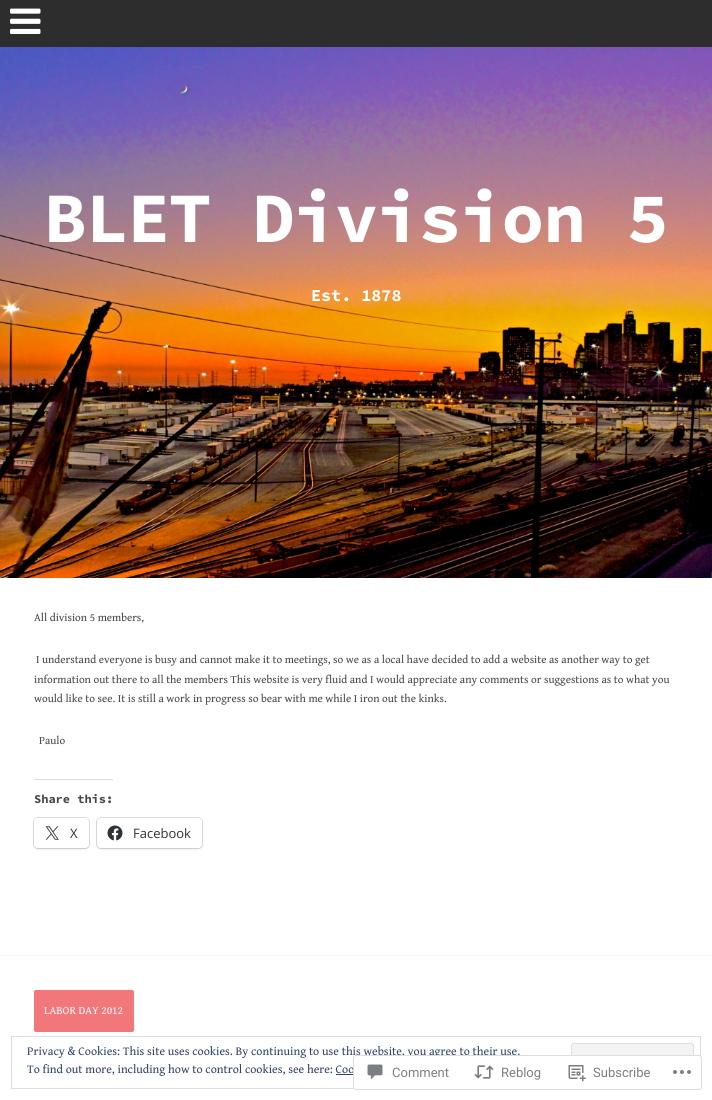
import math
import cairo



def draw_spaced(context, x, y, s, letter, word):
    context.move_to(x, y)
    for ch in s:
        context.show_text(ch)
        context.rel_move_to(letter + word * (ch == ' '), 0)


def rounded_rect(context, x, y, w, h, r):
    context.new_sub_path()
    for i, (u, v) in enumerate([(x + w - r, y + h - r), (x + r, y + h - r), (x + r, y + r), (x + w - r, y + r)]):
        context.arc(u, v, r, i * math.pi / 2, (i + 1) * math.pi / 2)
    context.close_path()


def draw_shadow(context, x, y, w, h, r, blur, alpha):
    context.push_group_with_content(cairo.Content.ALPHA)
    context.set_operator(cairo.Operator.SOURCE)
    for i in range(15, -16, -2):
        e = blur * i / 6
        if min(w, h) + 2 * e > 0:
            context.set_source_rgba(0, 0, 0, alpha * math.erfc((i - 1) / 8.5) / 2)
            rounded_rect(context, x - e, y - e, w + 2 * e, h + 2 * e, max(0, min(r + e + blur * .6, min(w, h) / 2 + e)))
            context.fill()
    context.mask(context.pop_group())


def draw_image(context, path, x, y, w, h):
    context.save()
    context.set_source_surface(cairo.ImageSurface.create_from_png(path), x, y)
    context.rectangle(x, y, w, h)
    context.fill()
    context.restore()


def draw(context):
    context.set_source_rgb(45 / 255, 45 / 255, 45 / 255)
    context.paint()
    draw_image(context, "images/1.png", 10, 8, 31, 26)
    draw_image(context, "images/2.png", 0, 47, 712, 531)
    context.set_source_rgb(1, 1, 1)
    context.rectangle(0, 578, 712, 522)
    context.fill()
    context.set_source_rgb(246 / 255, 246 / 255, 246 / 255)
    context.rectangle(0, 955, 712, 1)
    context.fill()
    context.set_source_rgb(220 / 255, 220 / 255, 222 / 255)
    context.rectangle(34, 779, 79, 1)
    context.fill()
    rounded_rect(context, 33.5, 817.5, 56, 31, 4.5)
    context.set_source_rgb(224 / 255, 224 / 255, 224 / 255)
    context.set_line_width(1)
    context.stroke()
    context.set_source_rgb(0, 0, 0)
    draw_shadow(context, 34, 819, 55, 30, 4, 1, 0.12)
    context.set_source_rgb(1, 1, 1)
    rounded_rect(context, 34, 818, 55, 30, 4)
    context.fill()
    draw_image(context, "images/3.png", 45, 826, 14, 14)
    rounded_rect(context, 96.5, 817.5, 106, 31, 4.5)
    context.set_source_rgb(224 / 255, 224 / 255, 224 / 255)
    context.stroke()
    context.set_source_rgb(0, 0, 0)
    draw_shadow(context, 97, 819, 105, 30, 4, 1, 0.12)
    context.set_source_rgb(1, 1, 1)
    rounded_rect(context, 97, 818, 105, 30, 4)
    context.fill()
    draw_image(context, "images/4.png", 107, 825, 16, 16)
    context.set_source_rgb(242 / 255, 119 / 255, 122 / 255)
    rounded_rect(context, 34, 990, 100, 42, 2)
    context.fill()
    context.rectangle(11.5, 1036.5, 689, 52)
    context.set_source_rgb(222 / 255, 222 / 255, 222 / 255)
    context.stroke()
    context.set_source_rgb(243 / 255, 243 / 255, 243 / 255)
    rounded_rect(context, 571.5, 1043.5, 122, 38, 2.5)
    context.fill_preserve()
    context.set_source_rgb(222 / 255, 222 / 255, 222 / 255)
    context.stroke()
    context.set_source_rgb(46 / 255, 68 / 255, 103 / 255)
    context.rectangle(336, 1074, 67, 1)
    context.fill()
    context.select_font_face("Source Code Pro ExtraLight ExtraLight")
    context.set_font_size(71)
    context.set_source_rgb(1, 1, 1)
    draw_spaced(context, 44, 242, "BLET Division 5", -1, 0)
    context.set_font_size(16.75)
    context.move_to(311, 301)
    context.show_text("Est. 1878")
    context.select_font_face("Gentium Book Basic")
    context.set_font_size(11.2)
    context.set_source_rgb(71 / 255, 71 / 255, 71 / 255)
    context.move_to(34, 621)
    context.show_text("All division 5 members,")
    context.move_to(36, 663)
    context.show_text("I understand everyone is busy and cannot make it to meetings, so we as a local have decided to add a website as another way to get")
    context.move_to(34, 683)
    context.show_text("information out there to all the members This website is very fluid and I would appreciate any comments or suggestions as to what you")
    context.move_to(34, 702)
    context.show_text("would like to see. It is still a work in progress so bear with me while I iron out the kinks.")
    context.move_to(39, 744)
    context.show_text("Paulo")
    context.select_font_face("Source Code Pro ExtraLight ExtraLight")
    context.set_font_size(12)
    context.move_to(34, 803)
    context.show_text("Share this:")
    context.select_font_face("Open Sans")
    context.set_font_size(13)
    context.set_source_rgb(44 / 255, 51 / 255, 56 / 255)
    context.move_to(70, 838)
    context.show_text("X")
    context.move_to(133, 838)
    context.show_text("Facebook")
    context.select_font_face("Gentium Book Basic")
    context.set_font_size(11.2)
    context.set_source_rgb(1, 1, 1)
    context.move_to(44, 1014)
    context.show_text("LABOR DAY 2012")
    context.set_font_size(12)
    context.set_source_rgb(46 / 255, 68 / 255, 103 / 255)
    context.move_to(27, 1055)
    context.show_text("Privacy & Cookies: This site uses cookies. By continuing to use this website, you agree to their use.")
    context.move_to(27, 1073)
    context.show_text("To find out more, including how to control cookies, see here: Coo")
    context.set_source_rgba(1, 1, 1, 0.98)
    rounded_rect(context, 353, 1055, 349, 35, 3)
    context.fill()
    rounded_rect(context, 353.5, 1055.5, 348, 34, 2.5)
    context.set_source_rgba(220 / 255, 220 / 255, 222 / 255, 0.98)
    context.stroke()
    draw_image(context, "images/5.png", 367, 1064, 16, 16)
    context.select_font_face("Roboto")
    context.set_font_size(13)
    context.set_source_rgb(123 / 255, 127 / 255, 132 / 255)
    context.move_to(392, 1077)
    context.show_text("Comment")
    draw_image(context, "images/6.png", 474, 1065, 20, 14)
    context.move_to(501, 1077)
    context.show_text("Reblog")
    draw_image(context, "images/7.png", 568, 1065, 18, 17)
    context.move_to(593, 1077)
    context.show_text("Subscribe")
    draw_image(context, "images/8.png", 673, 1070, 18, 4)


surface = cairo.ImageSurface(cairo.Format.RGB24, 712, 1100)
context = cairo.Context(surface)
options = cairo.FontOptions()
options.set_hint_metrics(cairo.HintMetrics.OFF)
options.set_hint_style(cairo.HintStyle.NONE)
context.set_font_options(options)
context.set_miter_limit(4)
draw(context)
surface.write_to_png("out.png")
